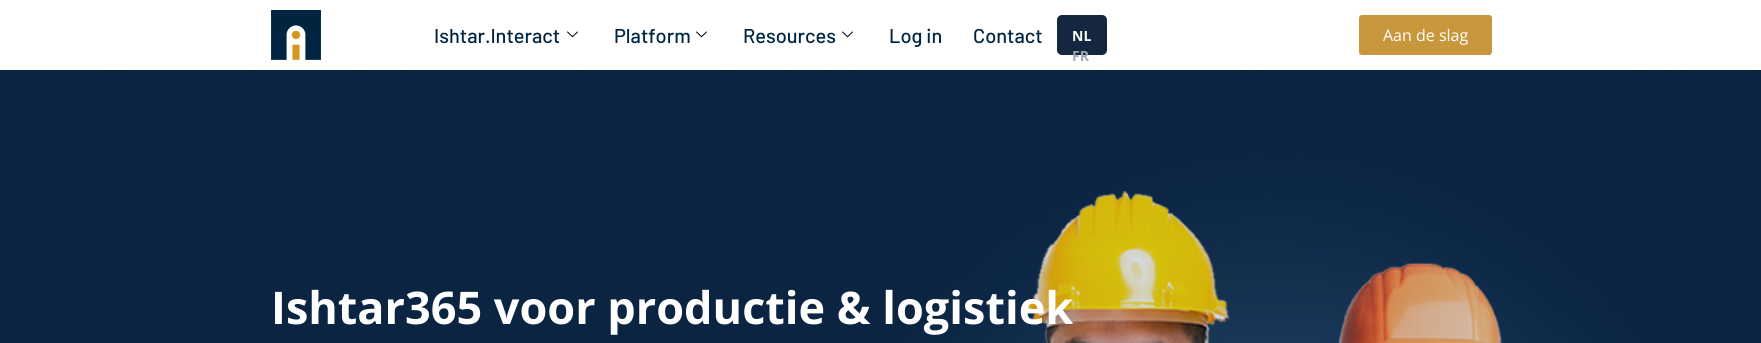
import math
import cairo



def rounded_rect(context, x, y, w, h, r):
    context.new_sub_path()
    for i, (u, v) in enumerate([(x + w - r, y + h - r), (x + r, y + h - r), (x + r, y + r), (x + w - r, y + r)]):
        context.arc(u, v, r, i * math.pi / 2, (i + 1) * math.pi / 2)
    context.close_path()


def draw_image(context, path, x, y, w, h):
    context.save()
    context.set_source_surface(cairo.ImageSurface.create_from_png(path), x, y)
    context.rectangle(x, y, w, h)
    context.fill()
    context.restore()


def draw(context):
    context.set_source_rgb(1, 1, 1)
    context.paint()
    draw_image(context, "images/1.png", 271, 10, 50, 50)
    draw_image(context, "images/2.png", 567, 31, 11, 7)
    draw_image(context, "images/2.png", 696, 31, 11, 7)
    draw_image(context, "images/2.png", 842, 31, 11, 7)
    context.set_source_rgb(20 / 255, 39 / 255, 62 / 255)
    rounded_rect(context, 1057, 15, 50, 40, 5)
    context.fill()
    context.set_source_rgb(200 / 255, 150 / 255, 59 / 255)
    rounded_rect(context, 1359, 15, 133, 40, 3)
    context.fill()
    draw_image(context, "images/3.png", 0, 70, 1761, 273)
    context.select_font_face("Barlow Medium")
    context.set_font_size(20)
    context.set_source_rgb(0, 37 / 255, 64 / 255)
    context.move_to(434, 43)
    context.show_text("Ishtar.Interact")
    context.move_to(614, 43)
    context.show_text("Platform")
    context.move_to(743, 43)
    context.show_text("Resources")
    context.move_to(889, 43)
    context.show_text("Log in")
    context.move_to(973, 43)
    context.show_text("Contact")
    context.select_font_face("Open Sans", cairo.FontSlant.NORMAL, cairo.FontWeight.BOLD)
    context.set_font_size(14)
    context.set_source_rgb(1, 1, 1)
    context.move_to(1072, 41)
    context.show_text("NL")
    context.set_source_rgb(158 / 255, 165 / 255, 175 / 255)
    context.move_to(1072, 61)
    context.show_text("FR")
    context.select_font_face("Open Sans")
    context.set_font_size(16)
    context.set_source_rgb(1, 1, 1)
    context.move_to(1383, 41)
    context.show_text("Aan de slag")
    context.select_font_face("Open Sans", cairo.FontSlant.NORMAL, cairo.FontWeight.BOLD)
    context.set_font_size(45)
    context.move_to(271, 324)
    context.show_text("Ishtar365 voor productie & logistiek")


surface = cairo.ImageSurface(cairo.Format.RGB24, 1761, 343)
context = cairo.Context(surface)
options = cairo.FontOptions()
options.set_hint_metrics(cairo.HintMetrics.OFF)
options.set_hint_style(cairo.HintStyle.NONE)
context.set_font_options(options)
context.set_miter_limit(4)
draw(context)
surface.write_to_png("out.png")
